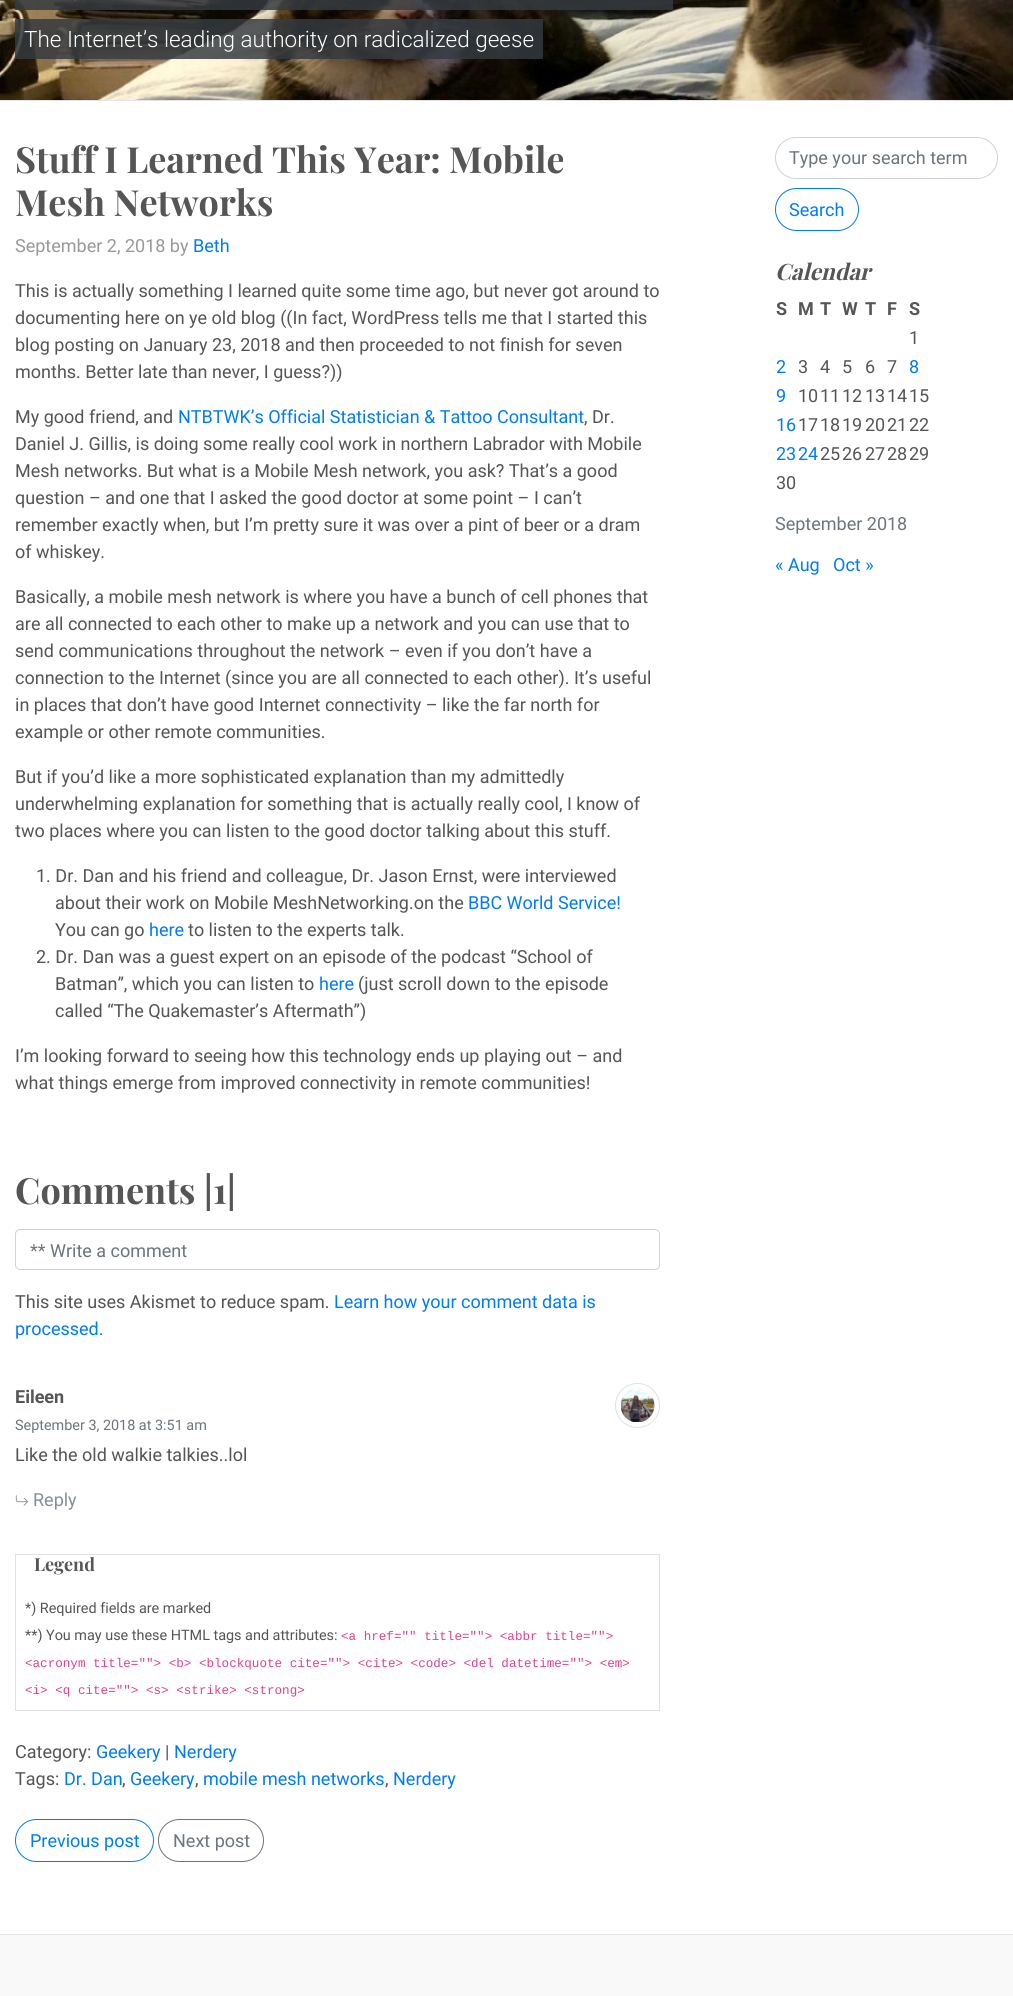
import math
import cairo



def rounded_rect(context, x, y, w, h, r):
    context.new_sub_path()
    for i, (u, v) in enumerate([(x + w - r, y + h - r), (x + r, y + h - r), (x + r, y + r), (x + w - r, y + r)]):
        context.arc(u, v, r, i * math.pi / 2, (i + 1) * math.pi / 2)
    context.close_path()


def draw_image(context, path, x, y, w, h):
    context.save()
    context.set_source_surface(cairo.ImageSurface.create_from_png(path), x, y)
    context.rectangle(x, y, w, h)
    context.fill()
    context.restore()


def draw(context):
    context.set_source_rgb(1, 1, 1)
    context.paint()
    draw_image(context, "images/1.png", 0, 0, 1013, 100)
    context.set_source_rgb(229 / 255, 229 / 255, 229 / 255)
    context.rectangle(0, 100, 1013, 1)
    context.fill()
    context.set_source_rgba(52 / 255, 58 / 255, 64 / 255, 0.83)
    context.rectangle(15, 0, 658, 10)
    context.fill()
    context.rectangle(15, 19, 528, 40)
    context.fill()
    rounded_rect(context, 15.5, 1229.5, 644, 40, 4.5)
    context.set_source_rgb(206 / 255, 212 / 255, 218 / 255)
    context.set_line_width(1)
    context.stroke()
    context.arc(637.5, 1405.5, 22, 0, 2 * math.pi)
    context.set_source_rgb(222 / 255, 226 / 255, 230 / 255)
    context.stroke()
    draw_image(context, "images/2.png", 621, 1388, 34, 34)
    draw_image(context, "images/3.png", 15, 1495, 14, 11)
    context.rectangle(15.5, 1554.5, 644, 156)
    context.stroke()
    rounded_rect(context, 15.5, 1819.5, 138, 42, 21)
    context.set_source_rgb(0, 123 / 255, 1)
    context.stroke()
    rounded_rect(context, 158.5, 1819.5, 105, 42, 21)
    context.set_source_rgb(108 / 255, 117 / 255, 125 / 255)
    context.stroke()
    rounded_rect(context, 775.5, 137.5, 222, 41, 20.5)
    context.set_source_rgb(206 / 255, 212 / 255, 218 / 255)
    context.stroke()
    rounded_rect(context, 775.5, 188.5, 83, 42, 21)
    context.set_source_rgb(0, 123 / 255, 1)
    context.stroke()
    context.set_source_rgb(249 / 255, 249 / 255, 249 / 255)
    context.rectangle(0, 1935, 1013, 61)
    context.fill()
    context.set_source_rgb(229 / 255, 229 / 255, 229 / 255)
    context.rectangle(0, 1934, 1013, 1)
    context.fill()
    context.select_font_face("Roboto Light")
    context.set_font_size(22.5)
    context.set_source_rgb(1, 1, 1)
    context.move_to(24, 47)
    context.show_text("The Internet’s leading authority on radicalized geese")
    context.select_font_face("Playfair Display", cairo.FontSlant.NORMAL, cairo.FontWeight.BOLD)
    context.set_font_size(36)
    context.set_source_rgb(85 / 255, 85 / 255, 85 / 255)
    context.move_to(15, 173)
    context.show_text("Stuff I Learned This Year: Mobile")
    context.move_to(15, 216)
    context.show_text("Mesh Networks")
    context.select_font_face("Roboto")
    context.set_font_size(18)
    context.set_source_rgb(153 / 255, 153 / 255, 153 / 255)
    context.move_to(15, 252)
    context.show_text("September 2, 2018 by")
    context.set_source_rgb(0, 123 / 255, 1)
    context.move_to(193, 252)
    context.show_text("Beth")
    context.set_source_rgb(85 / 255, 85 / 255, 85 / 255)
    context.move_to(15, 297)
    context.show_text("This is actually something I learned quite some time ago, but never got around to")
    context.move_to(15, 324)
    context.show_text("documenting here on ye old blog ((In fact, WordPress tells me that I started this")
    context.move_to(15, 351)
    context.show_text("blog posting on January 23, 2018 and then proceeded to not finish for seven")
    context.move_to(15, 378)
    context.show_text("months. Better late than never, I guess?))")
    context.move_to(15, 423)
    context.show_text("My good friend, and")
    context.set_source_rgb(0, 123 / 255, 1)
    context.move_to(178, 423)
    context.show_text("NTBTWK’s Official Statistician & Tattoo Consultant")
    context.set_source_rgb(85 / 255, 85 / 255, 85 / 255)
    context.move_to(584, 423)
    context.show_text(", Dr.")
    context.move_to(15, 450)
    context.show_text("Daniel J. Gillis, is doing some really cool work in northern Labrador with Mobile")
    context.move_to(15, 477)
    context.show_text("Mesh networks. But what is a Mobile Mesh network, you ask? That’s a good")
    context.move_to(15, 504)
    context.show_text("question – and one that I asked the good doctor at some point – I can’t")
    context.move_to(15, 531)
    context.show_text("remember exactly when, but I’m pretty sure it was over a pint of beer or a dram")
    context.move_to(15, 558)
    context.show_text("of whiskey.")
    context.move_to(15, 603)
    context.show_text("Basically, a mobile mesh network is where you have a bunch of cell phones that")
    context.move_to(15, 630)
    context.show_text("are all connected to each other to make up a network and you can use that to")
    context.move_to(15, 657)
    context.show_text("send communications throughout the network – even if you don’t have a")
    context.move_to(15, 684)
    context.show_text("connection to the Internet (since you are all connected to each other). It’s useful")
    context.move_to(15, 711)
    context.show_text("in places that don’t have good Internet connectivity – like the far north for")
    context.move_to(15, 738)
    context.show_text("example or other remote communities.")
    context.move_to(15, 783)
    context.show_text("But if you’d like a more sophisticated explanation than my admittedly")
    context.move_to(15, 810)
    context.show_text("underwhelming explanation for something that is actually really cool, I know of")
    context.move_to(15, 837)
    context.show_text("two places where you can listen to the good doctor talking about this stuff.")
    context.move_to(36, 882)
    context.show_text("1. Dr. Dan and his friend and colleague, Dr. Jason Ernst, were interviewed")
    context.move_to(55, 909)
    context.show_text("about their work on Mobile MeshNetworking.on the")
    context.set_source_rgb(0, 123 / 255, 1)
    context.move_to(468, 909)
    context.show_text("BBC World Service!")
    context.set_source_rgb(85 / 255, 85 / 255, 85 / 255)
    context.move_to(55, 936)
    context.show_text("You can go")
    context.set_source_rgb(0, 123 / 255, 1)
    context.move_to(149, 936)
    context.show_text("here")
    context.set_source_rgb(85 / 255, 85 / 255, 85 / 255)
    context.move_to(188, 936)
    context.show_text("to listen to the experts talk.")
    context.move_to(36, 963)
    context.show_text("2. Dr. Dan was a guest expert on an episode of the podcast “School of")
    context.move_to(55, 990)
    context.show_text("Batman”, which you can listen to")
    context.set_source_rgb(0, 123 / 255, 1)
    context.move_to(319, 990)
    context.show_text("here")
    context.set_source_rgb(85 / 255, 85 / 255, 85 / 255)
    context.move_to(358, 990)
    context.show_text("(just scroll down to the episode")
    context.move_to(55, 1017)
    context.show_text("called “The Quakemaster’s Aftermath”)")
    context.move_to(15, 1062)
    context.show_text("I’m looking forward to seeing how this technology ends up playing out – and")
    context.move_to(15, 1089)
    context.show_text("what things emerge from improved connectivity in remote communities!")
    context.select_font_face("Playfair Display", cairo.FontSlant.NORMAL, cairo.FontWeight.BOLD)
    context.set_font_size(36)
    context.move_to(15, 1204)
    context.show_text("Comments |1|")
    context.select_font_face("Roboto")
    context.set_font_size(18)
    context.set_source_rgb(108 / 255, 117 / 255, 125 / 255)
    context.move_to(30, 1257)
    context.show_text("** Write a comment")
    context.set_source_rgb(85 / 255, 85 / 255, 85 / 255)
    context.move_to(15, 1308)
    context.show_text("This site uses Akismet to reduce spam.")
    context.set_source_rgb(0, 123 / 255, 1)
    context.move_to(334, 1308)
    context.show_text("Learn how your comment data is")
    context.move_to(15, 1335)
    context.show_text("processed.")
    context.select_font_face("Roboto", cairo.FontSlant.NORMAL, cairo.FontWeight.BOLD)
    context.set_source_rgb(85 / 255, 85 / 255, 85 / 255)
    context.move_to(15, 1403)
    context.show_text("Eileen")
    context.select_font_face("Roboto")
    context.set_font_size(14.4)
    context.set_source_rgb(108 / 255, 117 / 255, 125 / 255)
    context.move_to(15, 1430)
    context.show_text("September 3, 2018 at 3:51 am")
    context.set_font_size(18)
    context.set_source_rgb(85 / 255, 85 / 255, 85 / 255)
    context.move_to(15, 1461)
    context.show_text("Like the old walkie talkies..lol")
    context.set_source_rgb(134 / 255, 142 / 255, 150 / 255)
    context.move_to(33, 1506)
    context.show_text("Reply")
    context.select_font_face("Playfair Display", cairo.FontSlant.NORMAL, cairo.FontWeight.BOLD)
    context.set_source_rgb(85 / 255, 85 / 255, 85 / 255)
    context.move_to(34, 1571)
    context.show_text("Legend")
    context.select_font_face("Roboto")
    context.set_font_size(14.4)
    context.move_to(25, 1613)
    context.show_text("*) Required fields are marked")
    context.move_to(25, 1640)
    context.show_text("**) You may use these HTML tags and attributes:")
    context.select_font_face("Liberation Mono")
    context.set_font_size(12.6)
    context.set_source_rgb(232 / 255, 62 / 255, 140 / 255)
    context.move_to(341, 1640)
    context.show_text("<a href=\"\" title=\"\"> <abbr title=\"\">")
    context.move_to(25, 1667)
    context.show_text("<acronym title=\"\"> <b> <blockquote cite=\"\"> <cite> <code> <del datetime=\"\"> <em>")
    context.move_to(25, 1694)
    context.show_text("<i> <q cite=\"\"> <s> <strike> <strong>")
    context.select_font_face("Roboto")
    context.set_font_size(18)
    context.set_source_rgb(85 / 255, 85 / 255, 85 / 255)
    context.move_to(15, 1758)
    context.show_text("Category:")
    context.set_source_rgb(0, 123 / 255, 1)
    context.move_to(96, 1758)
    context.show_text("Geekery")
    context.set_source_rgb(85 / 255, 85 / 255, 85 / 255)
    context.move_to(165, 1758)
    context.show_text("|")
    context.set_source_rgb(0, 123 / 255, 1)
    context.move_to(174, 1758)
    context.show_text("Nerdery")
    context.set_source_rgb(85 / 255, 85 / 255, 85 / 255)
    context.move_to(15, 1785)
    context.show_text("Tags:")
    context.set_source_rgb(0, 123 / 255, 1)
    context.move_to(64, 1785)
    context.show_text("Dr. Dan")
    context.set_source_rgb(85 / 255, 85 / 255, 85 / 255)
    context.move_to(122, 1785)
    context.show_text(",")
    context.set_source_rgb(0, 123 / 255, 1)
    context.move_to(130, 1785)
    context.show_text("Geekery")
    context.set_source_rgb(85 / 255, 85 / 255, 85 / 255)
    context.move_to(195, 1785)
    context.show_text(",")
    context.set_source_rgb(0, 123 / 255, 1)
    context.move_to(203, 1785)
    context.show_text("mobile mesh networks")
    context.set_source_rgb(85 / 255, 85 / 255, 85 / 255)
    context.move_to(385, 1785)
    context.show_text(",")
    context.set_source_rgb(0, 123 / 255, 1)
    context.move_to(393, 1785)
    context.show_text("Nerdery")
    context.move_to(30, 1847)
    context.show_text("Previous post")
    context.set_source_rgb(108 / 255, 117 / 255, 125 / 255)
    context.move_to(173, 1847)
    context.show_text("Next post")
    context.move_to(789, 164)
    context.show_text("Type your search term")
    context.set_source_rgb(0, 123 / 255, 1)
    context.move_to(789, 216)
    context.show_text("Search")
    context.select_font_face("Playfair Display", cairo.FontSlant.ITALIC, cairo.FontWeight.BOLD)
    context.set_font_size(22.5)
    context.set_source_rgb(85 / 255, 85 / 255, 85 / 255)
    context.move_to(775, 280)
    context.show_text("Calendar")
    context.select_font_face("Roboto", cairo.FontSlant.NORMAL, cairo.FontWeight.BOLD)
    context.set_font_size(18)
    context.move_to(776, 315)
    context.show_text("S")
    context.move_to(798, 315)
    context.show_text("M")
    context.move_to(820, 315)
    context.show_text("T")
    context.move_to(842, 315)
    context.show_text("W")
    context.move_to(865, 315)
    context.show_text("T")
    context.move_to(887, 315)
    context.show_text("F")
    context.move_to(909, 315)
    context.show_text("S")
    context.select_font_face("Roboto")
    context.move_to(909, 344)
    context.show_text("1")
    context.set_source_rgb(0, 123 / 255, 1)
    context.move_to(776, 373)
    context.show_text("2")
    context.set_source_rgb(85 / 255, 85 / 255, 85 / 255)
    context.move_to(798, 373)
    context.show_text("3")
    context.move_to(820, 373)
    context.show_text("4")
    context.move_to(842, 373)
    context.show_text("5")
    context.move_to(865, 373)
    context.show_text("6")
    context.move_to(887, 373)
    context.show_text("7")
    context.set_source_rgb(0, 123 / 255, 1)
    context.move_to(909, 373)
    context.show_text("8")
    context.move_to(776, 402)
    context.show_text("9")
    context.set_source_rgb(85 / 255, 85 / 255, 85 / 255)
    context.move_to(798, 402)
    context.show_text("10")
    context.move_to(820, 402)
    context.show_text("11")
    context.move_to(842, 402)
    context.show_text("12")
    context.move_to(865, 402)
    context.show_text("13")
    context.move_to(887, 402)
    context.show_text("14")
    context.move_to(909, 402)
    context.show_text("15")
    context.set_source_rgb(0, 123 / 255, 1)
    context.move_to(776, 431)
    context.show_text("16")
    context.set_source_rgb(85 / 255, 85 / 255, 85 / 255)
    context.move_to(798, 431)
    context.show_text("17")
    context.move_to(820, 431)
    context.show_text("18")
    context.move_to(842, 431)
    context.show_text("19")
    context.move_to(865, 431)
    context.show_text("20")
    context.move_to(887, 431)
    context.show_text("21")
    context.move_to(909, 431)
    context.show_text("22")
    context.set_source_rgb(0, 123 / 255, 1)
    context.move_to(776, 460)
    context.show_text("23")
    context.move_to(798, 460)
    context.show_text("24")
    context.set_source_rgb(85 / 255, 85 / 255, 85 / 255)
    context.move_to(820, 460)
    context.show_text("25")
    context.move_to(842, 460)
    context.show_text("26")
    context.move_to(865, 460)
    context.show_text("27")
    context.move_to(887, 460)
    context.show_text("28")
    context.move_to(909, 460)
    context.show_text("29")
    context.move_to(776, 489)
    context.show_text("30")
    context.set_source_rgb(108 / 255, 117 / 255, 125 / 255)
    context.move_to(775, 530)
    context.show_text("September 2018")
    context.set_source_rgb(0, 123 / 255, 1)
    context.move_to(775, 571)
    context.show_text("« Aug")
    context.move_to(833, 571)
    context.show_text("Oct »")


surface = cairo.ImageSurface(cairo.Format.RGB24, 1013, 1996)
context = cairo.Context(surface)
options = cairo.FontOptions()
options.set_hint_metrics(cairo.HintMetrics.OFF)
options.set_hint_style(cairo.HintStyle.NONE)
context.set_font_options(options)
context.set_miter_limit(4)
draw(context)
surface.write_to_png("out.png")
